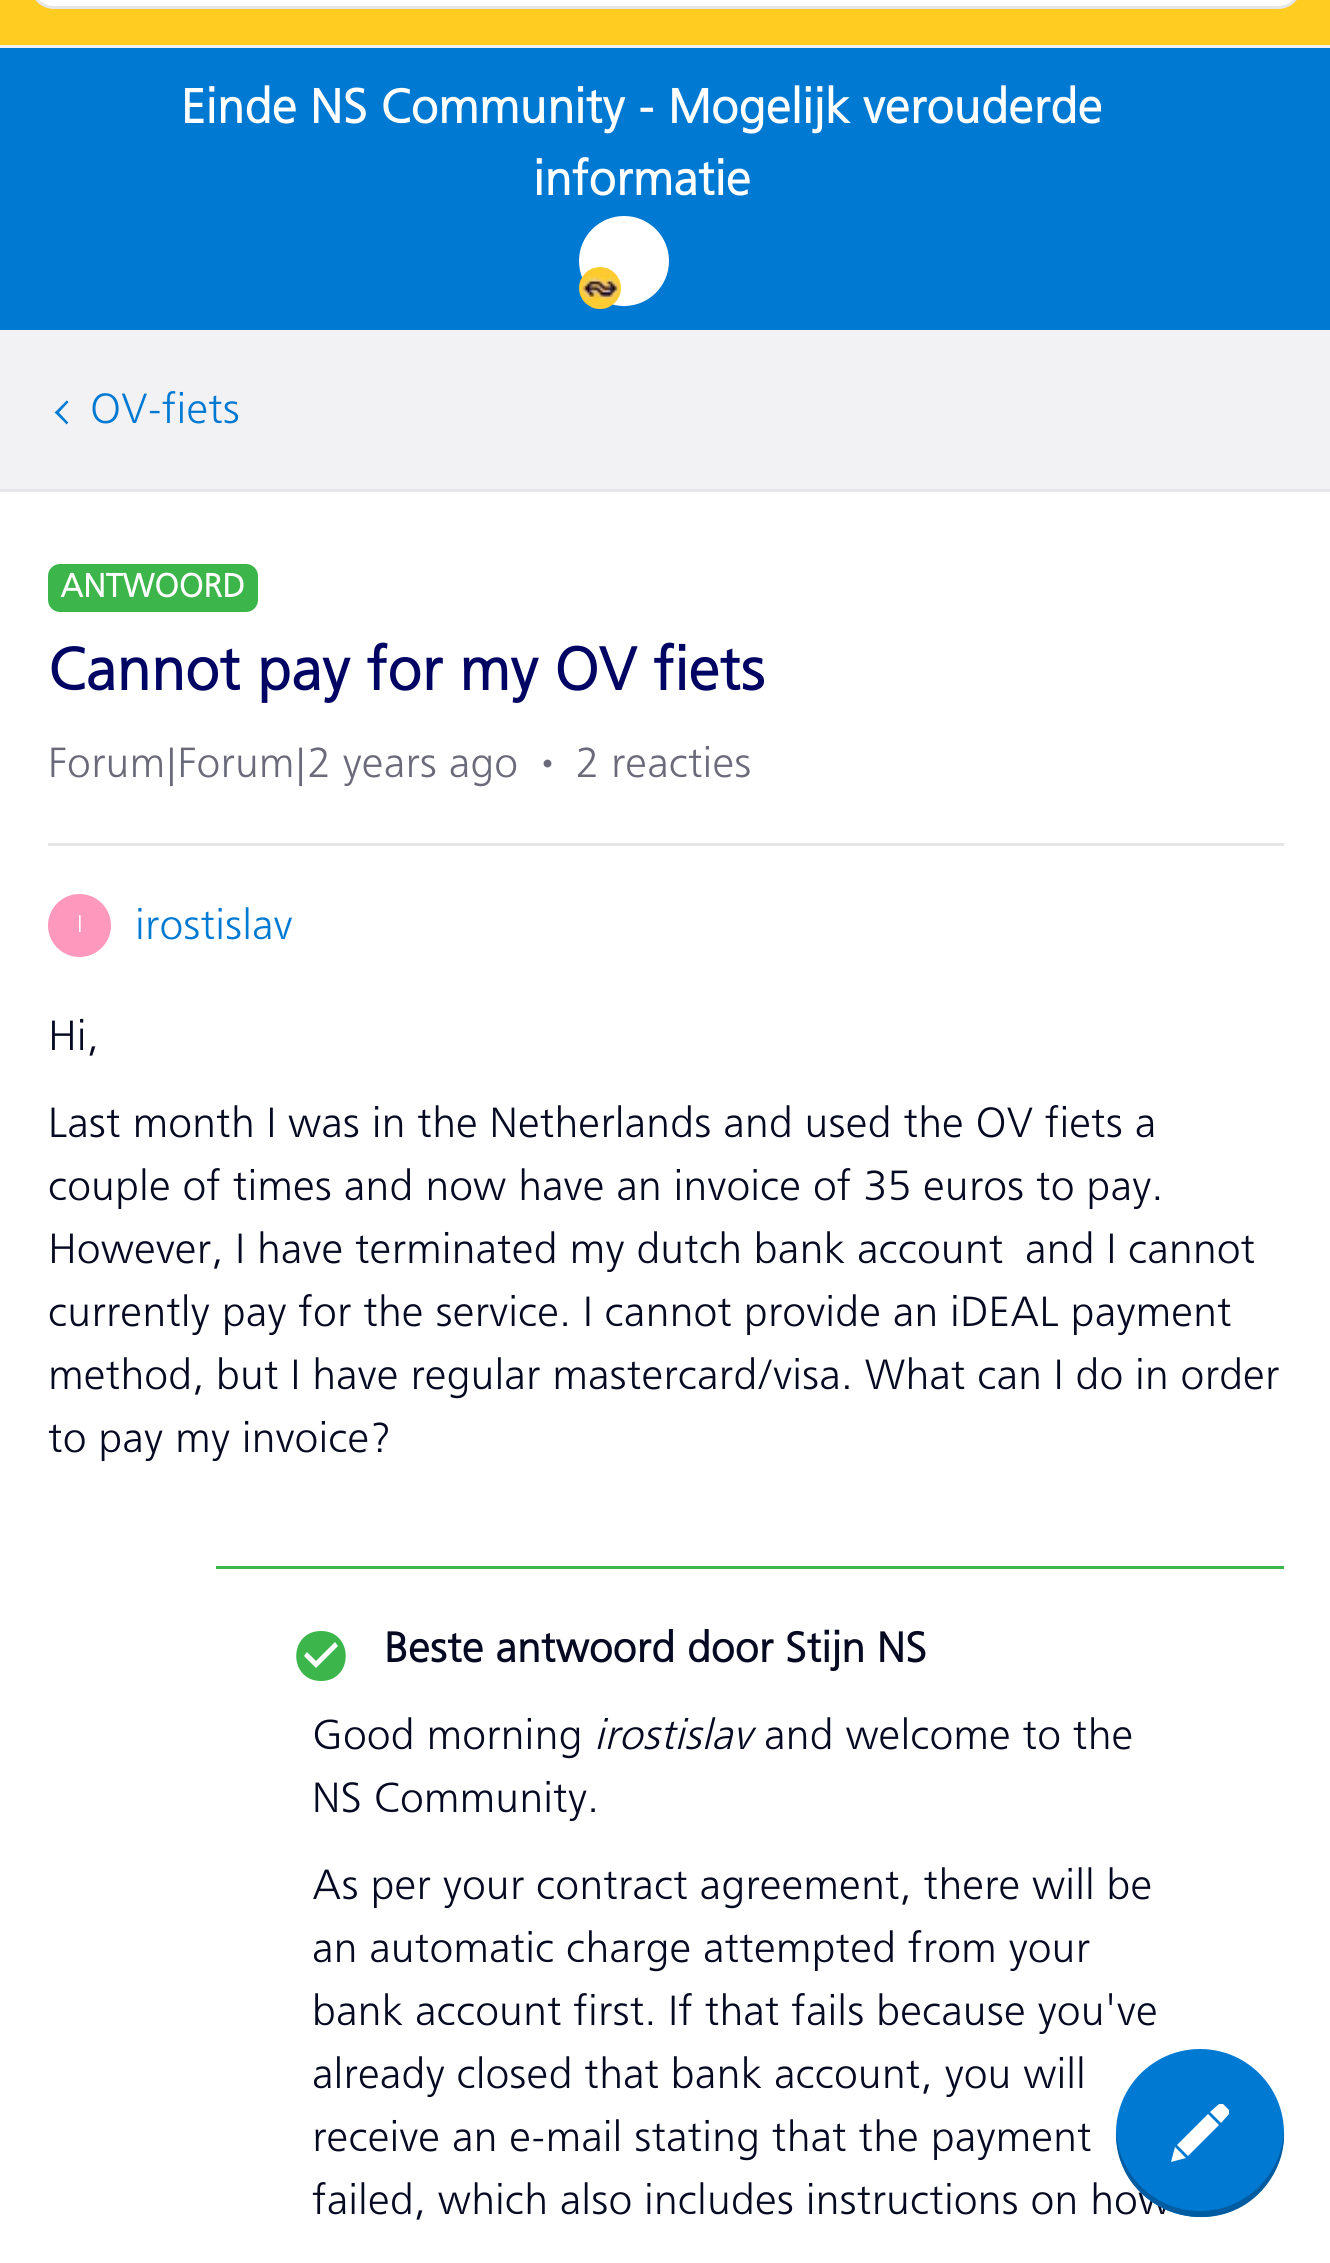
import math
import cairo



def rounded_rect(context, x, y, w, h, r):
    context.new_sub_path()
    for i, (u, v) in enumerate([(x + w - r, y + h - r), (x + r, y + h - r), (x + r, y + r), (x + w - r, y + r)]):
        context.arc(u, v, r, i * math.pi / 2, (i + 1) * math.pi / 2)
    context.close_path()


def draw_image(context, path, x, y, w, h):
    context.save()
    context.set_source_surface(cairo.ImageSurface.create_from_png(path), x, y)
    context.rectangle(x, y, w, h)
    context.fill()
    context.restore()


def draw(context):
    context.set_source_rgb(242 / 255, 242 / 255, 244 / 255)
    context.paint()
    context.set_source_rgb(1, 204 / 255, 33 / 255)
    context.rectangle(0, 0, 1330, 45)
    context.fill()
    context.set_source_rgb(1, 1, 1)
    rounded_rect(context, 31.5, -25.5, 1269, 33, 22.5)
    context.fill_preserve()
    context.set_source_rgb(230 / 255, 230 / 255, 233 / 255)
    context.set_line_width(3)
    context.stroke()
    context.set_source_rgb(0, 121 / 255, 211 / 255)
    context.rectangle(0, 48, 1330, 282)
    context.fill()
    context.set_source_rgb(1, 1, 1)
    context.arc(624, 261, 45, 0, 2 * math.pi)
    context.fill()
    draw_image(context, "images/1.png", 579, 267, 42, 42)
    draw_image(context, "images/2.png", 54, 400, 15, 25)
    context.rectangle(0, 492, 1330, 1771)
    context.fill()
    context.set_source_rgb(230 / 255, 230 / 255, 233 / 255)
    context.rectangle(0, 489, 1330, 3)
    context.fill()
    context.set_source_rgb(60 / 255, 181 / 255, 74 / 255)
    rounded_rect(context, 48, 564, 210, 48, 12)
    context.fill()
    draw_image(context, "images/3.png", 543, 759, 9, 9)
    context.set_source_rgb(230 / 255, 230 / 255, 233 / 255)
    context.rectangle(48, 843, 1236, 3)
    context.fill()
    context.set_source_rgb(1, 152 / 255, 189 / 255)
    context.arc(79.5, 925.5, 31.5, 0, 2 * math.pi)
    context.fill()
    context.set_source_rgb(60 / 255, 181 / 255, 74 / 255)
    context.rectangle(216, 1566, 1068, 3)
    context.fill()
    context.new_path()
    context.move_to(321, 1631)
    context.curve_to(288, 1631, 288, 1681, 321, 1681)
    context.curve_to(354, 1681, 354, 1631, 321, 1631)
    context.close_path()
    context.move_to(316, 1668)
    context.line_to(304, 1656)
    context.line_to(307, 1652)
    context.line_to(316, 1661)
    context.line_to(335, 1642)
    context.line_to(338, 1646)
    context.close_path()
    context.fill()
    context.select_font_face("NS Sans", cairo.FontSlant.NORMAL, cairo.FontWeight.BOLD)
    context.set_font_size(48)
    context.set_source_rgb(1, 1, 1)
    context.move_to(181, 123)
    context.show_text("Einde NS Community - Mogelijk verouderde")
    context.move_to(533, 195)
    context.show_text("informatie")
    context.select_font_face("NS Sans")
    context.set_font_size(42)
    context.set_source_rgb(0, 121 / 255, 211 / 255)
    context.move_to(90, 423)
    context.show_text("OV-fiets")
    context.select_font_face("NS Sans", cairo.FontSlant.NORMAL, cairo.FontWeight.BOLD)
    context.set_font_size(33)
    context.set_source_rgb(1, 1, 1)
    context.move_to(60, 597)
    context.show_text("ANTWOORD")
    context.set_font_size(60)
    context.set_source_rgb(0, 5 / 255, 100 / 255)
    context.move_to(48, 690)
    context.show_text("Cannot pay for my OV fiets")
    context.select_font_face("NS Sans")
    context.set_font_size(42)
    context.set_source_rgb(106 / 255, 106 / 255, 122 / 255)
    context.move_to(48, 777)
    context.show_text("Forum|Forum|2 years ago")
    context.move_to(575, 777)
    context.show_text("2 reacties")
    context.set_font_size(24)
    context.set_source_rgb(1, 1, 1)
    context.move_to(77, 932)
    context.show_text("I")
    context.set_font_size(42)
    context.set_source_rgb(0, 121 / 255, 211 / 255)
    context.move_to(135, 939)
    context.show_text("irostislav")
    context.set_source_rgb(6 / 255, 9 / 255, 34 / 255)
    context.move_to(48, 1050)
    context.show_text("Hi,")
    context.move_to(48, 1137)
    context.show_text("Last month I was in the Netherlands and used the OV fiets a")
    context.move_to(48, 1200)
    context.show_text("couple of times and now have an invoice of 35 euros to pay.")
    context.move_to(48, 1263)
    context.show_text("However, I have terminated my dutch bank account")
    context.move_to(1025, 1263)
    context.show_text("and I cannot")
    context.move_to(48, 1326)
    context.show_text("currently pay for the service. I cannot provide an iDEAL payment")
    context.move_to(48, 1389)
    context.show_text("method, but I have regular mastercard/visa. What can I do in order")
    context.move_to(48, 1452)
    context.show_text("to pay my invoice?")
    context.select_font_face("NS Sans", cairo.FontSlant.NORMAL, cairo.FontWeight.BOLD)
    context.move_to(384, 1662)
    context.show_text("Beste antwoord door Stijn NS")
    context.select_font_face("NS Sans")
    context.move_to(312, 1749)
    context.show_text("Good morning")
    context.select_font_face("NS Sans", cairo.FontSlant.ITALIC)
    context.move_to(594, 1749)
    context.show_text("irostislav")
    context.select_font_face("NS Sans")
    context.move_to(764, 1749)
    context.show_text("and welcome to the")
    context.move_to(312, 1812)
    context.show_text("NS Community.")
    context.move_to(312, 1899)
    context.show_text("As per your contract agreement, there will be")
    context.move_to(312, 1962)
    context.show_text("an automatic charge attempted from your")
    context.move_to(312, 2025)
    context.show_text("bank account first. If that fails because you've")
    context.move_to(312, 2088)
    context.show_text("already closed that bank account, you will")
    context.move_to(312, 2151)
    context.show_text("receive an e-mail stating that the payment")
    context.move_to(312, 2214)
    context.show_text("failed, which also includes instructions on how")
    context.set_source_rgb(0, 121 / 255, 211 / 255)
    context.new_path()
    context.arc(1200, 2133, 84, 0, 2 * math.pi)
    context.fill()
    context.set_source_rgb(0, 92 / 255, 160 / 255)
    context.new_path()
    context.move_to(1116, 2130)
    context.curve_to(1113, 2214, 1223, 2250, 1270, 2180)
    context.curve_to(1280, 2165, 1285, 2148, 1284, 2130)
    context.curve_to(1282, 2175, 1245, 2211, 1200, 2211)
    context.curve_to(1155, 2211, 1118, 2175, 1116, 2130)
    context.close_path()
    context.fill()
    context.set_source_rgb(1, 1, 1)
    context.new_path()
    context.move_to(1177, 2145)
    context.line_to(1208, 2114)
    context.line_to(1219, 2125)
    context.line_to(1188, 2156)
    context.close_path()
    context.move_to(1219, 2104)
    context.line_to(1223, 2104)
    context.line_to(1229, 2110)
    context.line_to(1229, 2114)
    context.line_to(1221, 2123)
    context.line_to(1210, 2112)
    context.close_path()
    context.move_to(1171, 2162)
    context.line_to(1175, 2147)
    context.line_to(1186, 2158)
    context.close_path()
    context.fill()


surface = cairo.ImageSurface(cairo.Format.RGB24, 1330, 2263)
context = cairo.Context(surface)
options = cairo.FontOptions()
options.set_hint_metrics(cairo.HintMetrics.OFF)
options.set_hint_style(cairo.HintStyle.NONE)
context.set_font_options(options)
context.set_miter_limit(4)
draw(context)
surface.write_to_png("out.png")
